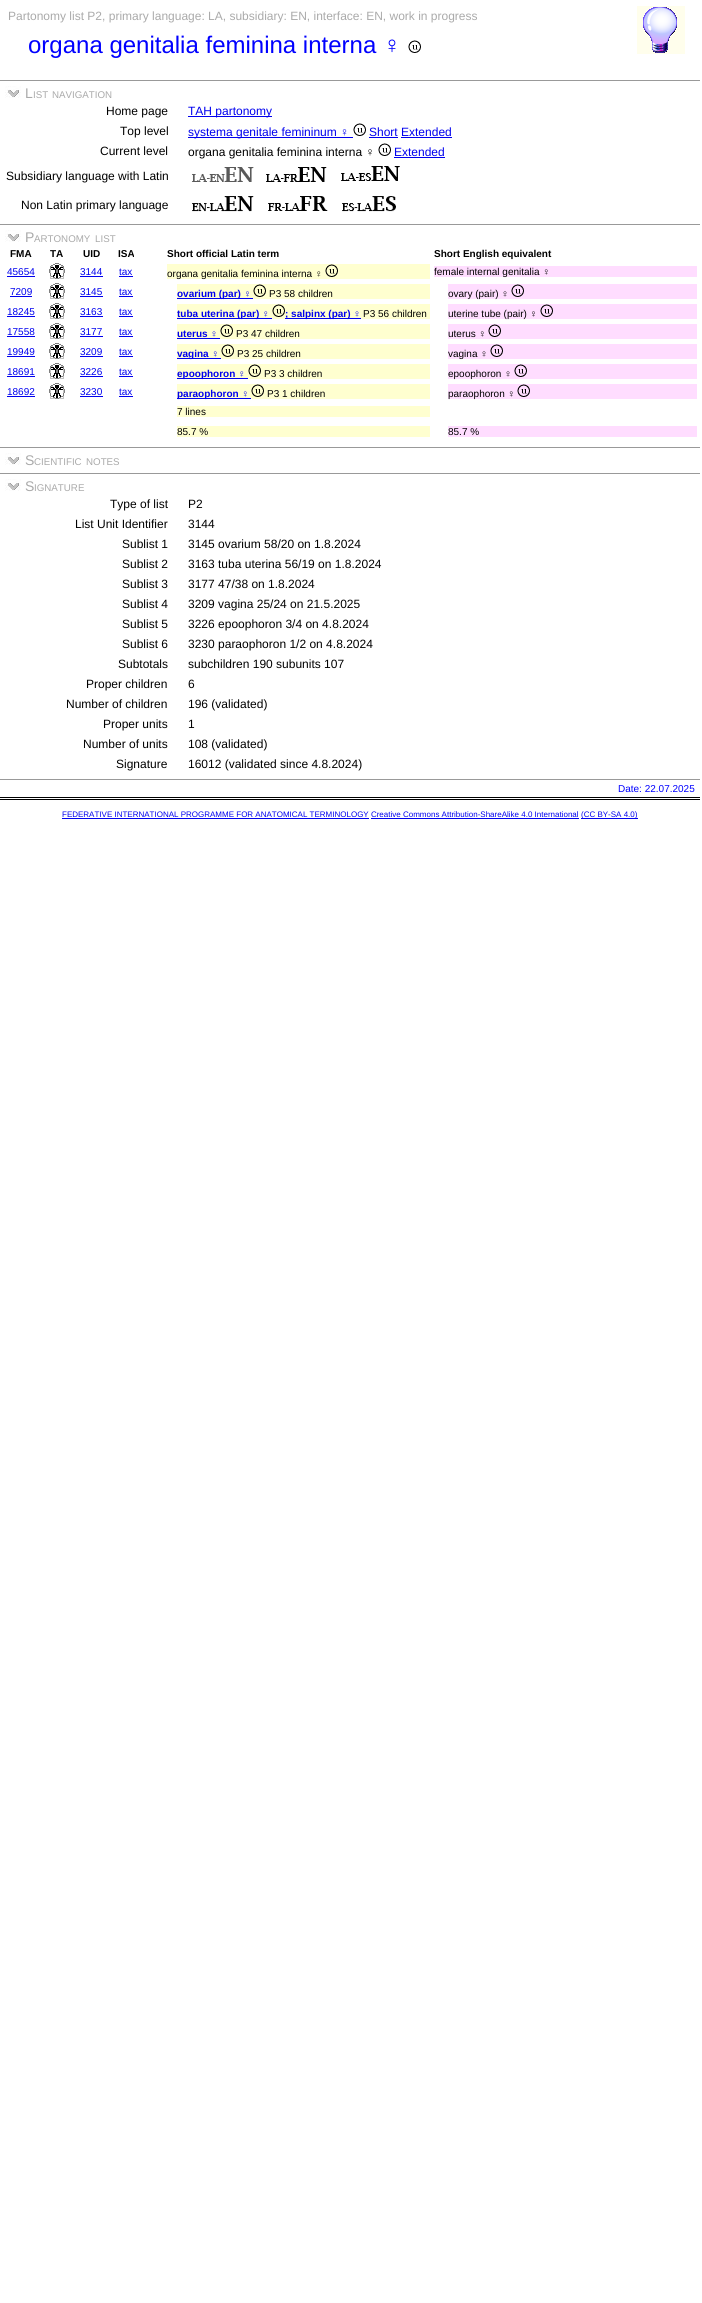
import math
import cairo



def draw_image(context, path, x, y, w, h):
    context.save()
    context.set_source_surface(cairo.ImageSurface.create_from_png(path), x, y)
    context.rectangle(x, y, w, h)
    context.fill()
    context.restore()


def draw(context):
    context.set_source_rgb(1, 1, 1)
    context.paint()
    draw_image(context, "images/1.png", 408, 40, 13, 13)
    draw_image(context, "images/2.png", 637, 6, 48, 48)
    context.set_source_rgb(153 / 255, 153 / 255, 153 / 255)
    context.rectangle(0, 80, 700, 1)
    context.fill()
    draw_image(context, "images/3.png", 5, 86, 16, 12)
    context.set_source_rgb(0, 0, 238 / 255)
    context.rectangle(188, 116, 84, 1)
    context.fill()
    context.rectangle(188, 137, 165, 1)
    context.fill()
    draw_image(context, "images/1.png", 353, 123, 13, 13)
    context.rectangle(369, 137, 29, 1)
    context.fill()
    context.rectangle(401, 137, 51, 1)
    context.fill()
    draw_image(context, "images/1.png", 378, 143, 13, 13)
    context.rectangle(394, 157, 51, 1)
    context.fill()
    draw_image(context, "images/4.png", 191, 167, 63, 15)
    draw_image(context, "images/5.png", 266, 167, 61, 15)
    draw_image(context, "images/6.png", 341, 166, 59, 15)
    draw_image(context, "images/7.png", 192, 196, 62, 16)
    draw_image(context, "images/8.png", 268, 196, 60, 15)
    draw_image(context, "images/9.png", 342, 196, 54, 16)
    context.set_source_rgb(153 / 255, 153 / 255, 153 / 255)
    context.rectangle(0, 224, 700, 1)
    context.fill()
    draw_image(context, "images/3.png", 5, 230, 16, 12)
    context.set_source_rgb(0, 0, 238 / 255)
    context.rectangle(7, 276, 28, 1)
    context.fill()
    draw_image(context, "images/10.png", 49, 263, 16, 16)
    context.rectangle(80, 276, 23, 1)
    context.fill()
    context.rectangle(119, 276, 14, 1)
    context.fill()
    context.set_source_rgb(1, 1, 208 / 255)
    context.rectangle(167, 264, 263, 15)
    context.fill()
    draw_image(context, "images/11.png", 325, 264, 13, 13)
    context.set_source_rgb(1, 221 / 255, 1)
    context.rectangle(434, 266, 263, 11)
    context.fill()
    context.set_source_rgb(0, 0, 238 / 255)
    context.rectangle(10, 296, 22, 1)
    context.fill()
    draw_image(context, "images/10.png", 49, 283, 16, 16)
    context.rectangle(80, 296, 23, 1)
    context.fill()
    context.rectangle(119, 296, 14, 1)
    context.fill()
    context.set_source_rgb(1, 1, 208 / 255)
    context.rectangle(177, 284, 253, 15)
    context.fill()
    context.set_source_rgb(0, 0, 238 / 255)
    context.rectangle(177, 298, 76, 1)
    context.fill()
    draw_image(context, "images/11.png", 253, 284, 13, 13)
    context.set_source_rgb(1, 221 / 255, 1)
    context.rectangle(448, 284, 249, 15)
    context.fill()
    draw_image(context, "images/12.png", 511, 284, 13, 13)
    context.set_source_rgb(0, 0, 238 / 255)
    context.rectangle(7, 316, 28, 1)
    context.fill()
    draw_image(context, "images/10.png", 49, 303, 16, 16)
    context.rectangle(80, 316, 23, 1)
    context.fill()
    context.rectangle(119, 316, 14, 1)
    context.fill()
    context.set_source_rgb(1, 1, 208 / 255)
    context.rectangle(177, 304, 253, 15)
    context.fill()
    context.set_source_rgb(0, 0, 238 / 255)
    context.rectangle(177, 318, 95, 1)
    context.fill()
    draw_image(context, "images/11.png", 272, 304, 13, 13)
    context.rectangle(285, 318, 76, 1)
    context.fill()
    context.set_source_rgb(1, 221 / 255, 1)
    context.rectangle(448, 304, 249, 15)
    context.fill()
    draw_image(context, "images/12.png", 540, 304, 13, 13)
    context.set_source_rgb(0, 0, 238 / 255)
    context.rectangle(7, 336, 28, 1)
    context.fill()
    draw_image(context, "images/10.png", 49, 323, 16, 16)
    context.rectangle(80, 336, 23, 1)
    context.fill()
    context.rectangle(119, 336, 14, 1)
    context.fill()
    context.set_source_rgb(1, 1, 208 / 255)
    context.rectangle(177, 324, 253, 15)
    context.fill()
    context.set_source_rgb(0, 0, 238 / 255)
    context.rectangle(177, 338, 43, 1)
    context.fill()
    draw_image(context, "images/11.png", 220, 324, 13, 13)
    context.set_source_rgb(1, 221 / 255, 1)
    context.rectangle(448, 324, 249, 15)
    context.fill()
    draw_image(context, "images/12.png", 488, 324, 13, 13)
    context.set_source_rgb(0, 0, 238 / 255)
    context.rectangle(7, 356, 28, 1)
    context.fill()
    draw_image(context, "images/10.png", 49, 343, 16, 16)
    context.rectangle(80, 356, 23, 1)
    context.fill()
    context.rectangle(119, 356, 14, 1)
    context.fill()
    context.set_source_rgb(1, 1, 208 / 255)
    context.rectangle(177, 344, 253, 15)
    context.fill()
    context.set_source_rgb(0, 0, 238 / 255)
    context.rectangle(177, 358, 44, 1)
    context.fill()
    draw_image(context, "images/11.png", 221, 344, 13, 13)
    context.set_source_rgb(1, 221 / 255, 1)
    context.rectangle(448, 344, 249, 15)
    context.fill()
    draw_image(context, "images/12.png", 490, 344, 13, 13)
    context.set_source_rgb(0, 0, 238 / 255)
    context.rectangle(7, 376, 28, 1)
    context.fill()
    draw_image(context, "images/10.png", 49, 363, 16, 16)
    context.rectangle(80, 376, 23, 1)
    context.fill()
    context.rectangle(119, 376, 14, 1)
    context.fill()
    context.set_source_rgb(1, 1, 208 / 255)
    context.rectangle(177, 364, 253, 15)
    context.fill()
    context.set_source_rgb(0, 0, 238 / 255)
    context.rectangle(177, 378, 71, 1)
    context.fill()
    draw_image(context, "images/11.png", 248, 364, 13, 13)
    context.set_source_rgb(1, 221 / 255, 1)
    context.rectangle(448, 364, 249, 15)
    context.fill()
    draw_image(context, "images/12.png", 514, 364, 13, 13)
    context.set_source_rgb(0, 0, 238 / 255)
    context.rectangle(7, 396, 28, 1)
    context.fill()
    draw_image(context, "images/10.png", 49, 383, 16, 16)
    context.rectangle(80, 396, 23, 1)
    context.fill()
    context.rectangle(119, 396, 14, 1)
    context.fill()
    context.set_source_rgb(1, 1, 208 / 255)
    context.rectangle(177, 384, 253, 15)
    context.fill()
    context.set_source_rgb(0, 0, 238 / 255)
    context.rectangle(177, 398, 74, 1)
    context.fill()
    draw_image(context, "images/11.png", 251, 384, 13, 13)
    context.set_source_rgb(1, 221 / 255, 1)
    context.rectangle(448, 384, 249, 15)
    context.fill()
    draw_image(context, "images/12.png", 517, 384, 13, 13)
    context.set_source_rgb(1, 1, 208 / 255)
    context.rectangle(177, 406, 253, 11)
    context.fill()
    context.rectangle(177, 426, 253, 11)
    context.fill()
    context.set_source_rgb(1, 221 / 255, 1)
    context.rectangle(448, 426, 249, 11)
    context.fill()
    context.set_source_rgb(153 / 255, 153 / 255, 153 / 255)
    context.rectangle(0, 447, 700, 1)
    context.fill()
    draw_image(context, "images/3.png", 5, 453, 16, 12)
    context.rectangle(0, 473, 700, 1)
    context.fill()
    draw_image(context, "images/3.png", 5, 479, 16, 12)
    context.rectangle(0, 779, 700, 1)
    context.fill()
    context.set_source_rgb(0, 0, 0)
    context.rectangle(0, 797, 700, 1)
    context.fill()
    context.rectangle(0, 799, 700, 1)
    context.fill()
    context.set_source_rgb(0, 0, 238 / 255)
    context.rectangle(62, 818, 307, 1)
    context.fill()
    context.rectangle(581, 818, 57, 1)
    context.fill()
    context.rectangle(371, 818, 208, 1)
    context.fill()
    context.select_font_face("Liberation Sans")
    context.set_font_size(12)
    context.set_source_rgb(170 / 255, 170 / 255, 170 / 255)
    context.move_to(8, 20)
    context.show_text("Partonomy list P2, primary language: LA, subsidiary: EN, interface: EN, work in progress")
    context.set_font_size(24)
    context.set_source_rgb(0, 0, 1)
    context.move_to(28, 53)
    context.show_text("organa genitalia feminina interna ♀")
    context.set_font_size(14)
    context.set_source_rgb(170 / 255, 170 / 255, 170 / 255)
    context.move_to(25, 98)
    context.show_text("L")
    context.set_font_size(9.75)
    context.move_to(33, 98)
    context.show_text("IST")
    context.move_to(52, 98)
    context.show_text("NAVIGATION")
    context.set_font_size(12)
    context.set_source_rgb(0, 0, 0)
    context.move_to(106, 115)
    context.show_text("Home page")
    context.set_source_rgb(0, 0, 238 / 255)
    context.move_to(188, 115)
    context.show_text("TAH partonomy")
    context.set_source_rgb(0, 0, 0)
    context.move_to(120, 135)
    context.show_text("Top level")
    context.set_source_rgb(0, 0, 238 / 255)
    context.move_to(188, 136)
    context.show_text("systema genitale femininum ♀")
    context.move_to(369, 136)
    context.show_text("Short Extended")
    context.set_source_rgb(0, 0, 0)
    context.move_to(100, 155)
    context.show_text("Current level")
    context.move_to(188, 156)
    context.show_text("organa genitalia feminina interna ♀")
    context.set_source_rgb(0, 0, 238 / 255)
    context.move_to(394, 156)
    context.show_text("Extended")
    context.set_source_rgb(0, 0, 0)
    context.move_to(6, 180)
    context.show_text("Subsidiary language with Latin")
    context.move_to(21, 209)
    context.show_text("Non Latin primary language")
    context.set_font_size(14)
    context.set_source_rgb(170 / 255, 170 / 255, 170 / 255)
    context.move_to(25, 242)
    context.show_text("P")
    context.set_font_size(9.75)
    context.move_to(34, 242)
    context.show_text("ARTONOMY")
    context.move_to(95, 242)
    context.show_text("LIST")
    context.select_font_face("Liberation Sans", cairo.FontSlant.NORMAL, cairo.FontWeight.BOLD)
    context.set_font_size(10)
    context.set_source_rgb(0, 0, 0)
    context.move_to(10, 257)
    context.show_text("FMA")
    context.move_to(50, 257)
    context.show_text("TA")
    context.move_to(83, 257)
    context.show_text("UID")
    context.move_to(118, 257)
    context.show_text("ISA")
    context.move_to(167, 257)
    context.show_text("Short official Latin term")
    context.move_to(434, 257)
    context.show_text("Short English equivalent")
    context.select_font_face("Liberation Sans")
    context.set_source_rgb(0, 0, 238 / 255)
    context.move_to(7, 275)
    context.show_text("45654")
    context.move_to(80, 275)
    context.show_text("3144")
    context.move_to(119, 275)
    context.show_text("tax")
    context.set_source_rgb(0, 0, 0)
    context.move_to(167, 277)
    context.show_text("organa genitalia feminina interna ♀")
    context.move_to(434, 275)
    context.show_text("female internal genitalia ♀")
    context.set_source_rgb(0, 0, 238 / 255)
    context.move_to(10, 295)
    context.show_text("7209")
    context.move_to(80, 295)
    context.show_text("3145")
    context.move_to(119, 295)
    context.show_text("tax")
    context.select_font_face("Liberation Sans", cairo.FontSlant.NORMAL, cairo.FontWeight.BOLD)
    context.move_to(177, 297)
    context.show_text("ovarium (par) ♀")
    context.select_font_face("Liberation Sans")
    context.set_source_rgb(0, 0, 0)
    context.move_to(269, 297)
    context.show_text("P3 58 children")
    context.move_to(448, 297)
    context.show_text("ovary (pair) ♀")
    context.set_source_rgb(0, 0, 238 / 255)
    context.move_to(7, 315)
    context.show_text("18245")
    context.move_to(80, 315)
    context.show_text("3163")
    context.move_to(119, 315)
    context.show_text("tax")
    context.select_font_face("Liberation Sans", cairo.FontSlant.NORMAL, cairo.FontWeight.BOLD)
    context.move_to(177, 317)
    context.show_text("tuba uterina (par) ♀")
    context.move_to(285, 317)
    context.show_text("; salpinx (par) ♀")
    context.select_font_face("Liberation Sans")
    context.set_source_rgb(0, 0, 0)
    context.move_to(363, 317)
    context.show_text("P3 56 children")
    context.move_to(448, 317)
    context.show_text("uterine tube (pair) ♀")
    context.set_source_rgb(0, 0, 238 / 255)
    context.move_to(7, 335)
    context.show_text("17558")
    context.move_to(80, 335)
    context.show_text("3177")
    context.move_to(119, 335)
    context.show_text("tax")
    context.select_font_face("Liberation Sans", cairo.FontSlant.NORMAL, cairo.FontWeight.BOLD)
    context.move_to(177, 337)
    context.show_text("uterus ♀")
    context.select_font_face("Liberation Sans")
    context.set_source_rgb(0, 0, 0)
    context.move_to(236, 337)
    context.show_text("P3 47 children")
    context.move_to(448, 337)
    context.show_text("uterus ♀")
    context.set_source_rgb(0, 0, 238 / 255)
    context.move_to(7, 355)
    context.show_text("19949")
    context.move_to(80, 355)
    context.show_text("3209")
    context.move_to(119, 355)
    context.show_text("tax")
    context.select_font_face("Liberation Sans", cairo.FontSlant.NORMAL, cairo.FontWeight.BOLD)
    context.move_to(177, 357)
    context.show_text("vagina ♀")
    context.select_font_face("Liberation Sans")
    context.set_source_rgb(0, 0, 0)
    context.move_to(237, 357)
    context.show_text("P3 25 children")
    context.move_to(448, 357)
    context.show_text("vagina ♀")
    context.set_source_rgb(0, 0, 238 / 255)
    context.move_to(7, 375)
    context.show_text("18691")
    context.move_to(80, 375)
    context.show_text("3226")
    context.move_to(119, 375)
    context.show_text("tax")
    context.select_font_face("Liberation Sans", cairo.FontSlant.NORMAL, cairo.FontWeight.BOLD)
    context.move_to(177, 377)
    context.show_text("epoophoron ♀")
    context.select_font_face("Liberation Sans")
    context.set_source_rgb(0, 0, 0)
    context.move_to(264, 377)
    context.show_text("P3 3 children")
    context.move_to(448, 377)
    context.show_text("epoophoron ♀")
    context.set_source_rgb(0, 0, 238 / 255)
    context.move_to(7, 395)
    context.show_text("18692")
    context.move_to(80, 395)
    context.show_text("3230")
    context.move_to(119, 395)
    context.show_text("tax")
    context.select_font_face("Liberation Sans", cairo.FontSlant.NORMAL, cairo.FontWeight.BOLD)
    context.move_to(177, 397)
    context.show_text("paraophoron ♀")
    context.select_font_face("Liberation Sans")
    context.set_source_rgb(0, 0, 0)
    context.move_to(267, 397)
    context.show_text("P3 1 children")
    context.move_to(448, 397)
    context.show_text("paraophoron ♀")
    context.move_to(177, 415)
    context.show_text("7 lines")
    context.move_to(177, 435)
    context.show_text("85.7 %")
    context.move_to(448, 435)
    context.show_text("85.7 %")
    context.set_font_size(14)
    context.set_source_rgb(170 / 255, 170 / 255, 170 / 255)
    context.move_to(25, 465)
    context.show_text("S")
    context.set_font_size(9.75)
    context.move_to(34, 465)
    context.show_text("CIENTIFIC")
    context.move_to(86, 465)
    context.show_text("NOTES")
    context.set_font_size(14)
    context.move_to(25, 491)
    context.show_text("S")
    context.set_font_size(9.75)
    context.move_to(34, 491)
    context.show_text("IGNATURE")
    context.set_font_size(12)
    context.set_source_rgb(0, 0, 0)
    context.move_to(110, 508)
    context.show_text("Type of list")
    context.move_to(188, 508)
    context.show_text("P2")
    context.move_to(75, 528)
    context.show_text("List Unit Identifier")
    context.move_to(188, 528)
    context.show_text("3144")
    context.move_to(122, 548)
    context.show_text("Sublist 1")
    context.move_to(188, 548)
    context.show_text("3145 ovarium 58/20 on 1.8.2024")
    context.move_to(122, 568)
    context.show_text("Sublist 2")
    context.move_to(188, 568)
    context.show_text("3163 tuba uterina 56/19 on 1.8.2024")
    context.move_to(122, 588)
    context.show_text("Sublist 3")
    context.move_to(188, 588)
    context.show_text("3177 47/38 on 1.8.2024")
    context.move_to(122, 608)
    context.show_text("Sublist 4")
    context.move_to(188, 608)
    context.show_text("3209 vagina 25/24 on 21.5.2025")
    context.move_to(122, 628)
    context.show_text("Sublist 5")
    context.move_to(188, 628)
    context.show_text("3226 epoophoron 3/4 on 4.8.2024")
    context.move_to(122, 648)
    context.show_text("Sublist 6")
    context.move_to(188, 648)
    context.show_text("3230 paraophoron 1/2 on 4.8.2024")
    context.move_to(118, 668)
    context.show_text("Subtotals")
    context.move_to(188, 668)
    context.show_text("subchildren 190 subunits 107")
    context.move_to(86, 688)
    context.show_text("Proper children")
    context.move_to(188, 688)
    context.show_text("6")
    context.move_to(66, 708)
    context.show_text("Number of children")
    context.move_to(188, 708)
    context.show_text("196 (validated)")
    context.move_to(103, 728)
    context.show_text("Proper units")
    context.move_to(188, 728)
    context.show_text("1")
    context.move_to(83, 748)
    context.show_text("Number of units")
    context.move_to(188, 748)
    context.show_text("108 (validated)")
    context.move_to(116, 768)
    context.show_text("Signature")
    context.move_to(188, 768)
    context.show_text("16012 (validated since 4.8.2024)")
    context.set_font_size(10)
    context.set_source_rgb(0, 0, 1)
    context.move_to(618, 792)
    context.show_text("Date: 22.07.2025")
    context.set_font_size(8)
    context.set_source_rgb(0, 0, 238 / 255)
    context.move_to(62, 817)
    context.show_text("FEDERATIVE INTERNATIONAL PROGRAMME FOR ANATOMICAL TERMINOLOGY Creative Commons Attribution-ShareAlike 4.0 International")
    context.move_to(581, 817)
    context.show_text("(CC BY-SA 4.0)")


surface = cairo.ImageSurface(cairo.Format.RGB24, 702, 2303)
context = cairo.Context(surface)
options = cairo.FontOptions()
options.set_hint_metrics(cairo.HintMetrics.OFF)
options.set_hint_style(cairo.HintStyle.NONE)
context.set_font_options(options)
context.set_miter_limit(4)
draw(context)
surface.write_to_png("out.png")
